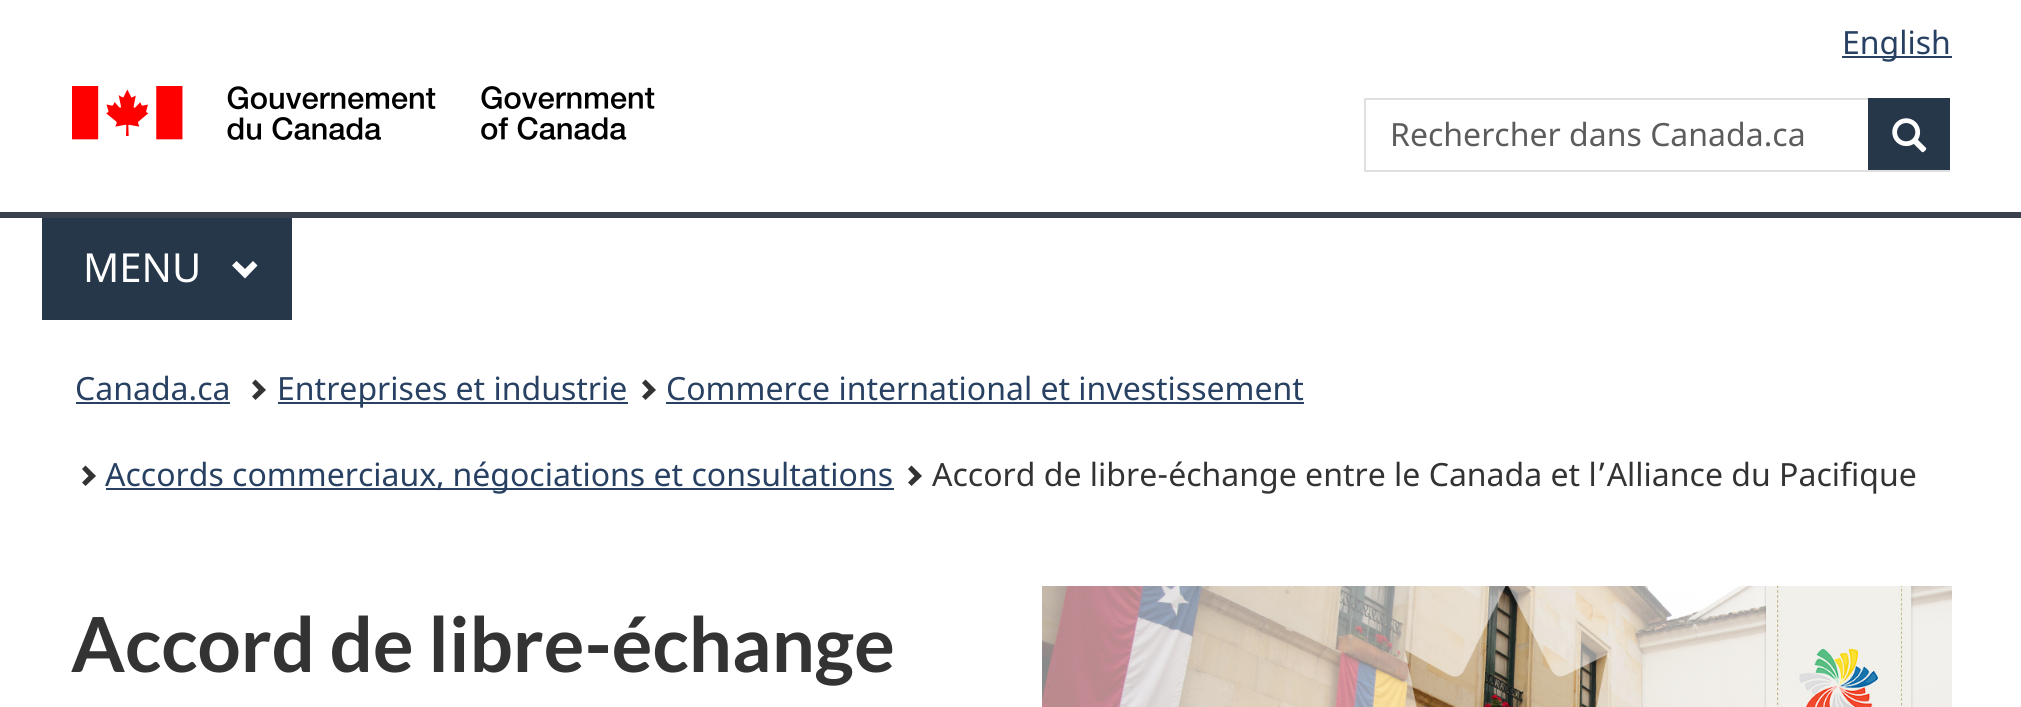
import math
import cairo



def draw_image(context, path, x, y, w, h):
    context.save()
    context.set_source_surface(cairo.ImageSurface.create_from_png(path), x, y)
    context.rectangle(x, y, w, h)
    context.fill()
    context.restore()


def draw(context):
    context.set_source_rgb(1, 1, 1)
    context.paint()
    context.set_source_rgb(40 / 255, 65 / 255, 98 / 255)
    context.rectangle(1842, 56, 110, 2)
    context.fill()
    draw_image(context, "images/1.png", 72, 86, 583, 54)
    context.rectangle(1365, 99, 584, 72)
    context.set_source_rgb(224 / 255, 224 / 255, 224 / 255)
    context.stroke()
    context.set_source_rgb(38 / 255, 55 / 255, 74 / 255)
    context.rectangle(1868, 98, 82, 72)
    context.fill()
    draw_image(context, "images/2.png", 1892, 118, 35, 35)
    context.set_source_rgb(56 / 255, 65 / 255, 77 / 255)
    context.rectangle(0, 212, 2021, 6)
    context.fill()
    context.set_source_rgb(38 / 255, 55 / 255, 74 / 255)
    context.rectangle(42, 218, 250, 102)
    context.fill()
    context.set_source_rgb(1, 1, 1)
    context.new_path()
    context.move_to(257.5, 265.5)
    context.line_to(245, 278.5)
    context.line_to(232, 265.5)
    context.line_to(236.5, 261)
    context.line_to(245, 269)
    context.line_to(253, 261)
    context.close_path()
    context.fill()
    context.set_source_rgb(40 / 255, 65 / 255, 98 / 255)
    context.rectangle(76, 402, 154, 2)
    context.fill()
    context.set_source_rgb(51 / 255, 51 / 255, 51 / 255)
    context.new_path()
    context.move_to(266, 390)
    context.line_to(255.5, 400)
    context.line_to(252, 396.5)
    context.line_to(258.5, 390)
    context.line_to(252, 383)
    context.line_to(255.5, 379.5)
    context.close_path()
    context.fill()
    context.set_source_rgb(40 / 255, 65 / 255, 98 / 255)
    context.rectangle(278, 402, 350, 2)
    context.fill()
    context.set_source_rgb(51 / 255, 51 / 255, 51 / 255)
    context.new_path()
    context.move_to(656, 390)
    context.line_to(645.5, 400)
    context.line_to(642, 396.5)
    context.line_to(648.5, 390)
    context.line_to(642, 383)
    context.line_to(645.5, 379.5)
    context.close_path()
    context.fill()
    context.set_source_rgb(40 / 255, 65 / 255, 98 / 255)
    context.rectangle(666, 402, 638, 2)
    context.fill()
    context.set_source_rgb(51 / 255, 51 / 255, 51 / 255)
    context.new_path()
    context.move_to(96, 476)
    context.line_to(85.5, 486)
    context.line_to(82, 482.5)
    context.line_to(88.5, 476)
    context.line_to(82, 469)
    context.line_to(85.5, 465.5)
    context.close_path()
    context.fill()
    context.set_source_rgb(40 / 255, 65 / 255, 98 / 255)
    context.rectangle(106, 488, 788, 2)
    context.fill()
    context.set_source_rgb(51 / 255, 51 / 255, 51 / 255)
    context.new_path()
    context.move_to(922, 476)
    context.line_to(911.5, 486)
    context.line_to(908, 482.5)
    context.line_to(914.5, 476)
    context.line_to(908, 469)
    context.line_to(911.5, 465.5)
    context.close_path()
    context.fill()
    draw_image(context, "images/3.png", 1042, 586, 910, 121)
    context.select_font_face("Noto Sans")
    context.set_font_size(32)
    context.set_source_rgb(40 / 255, 65 / 255, 98 / 255)
    context.move_to(1842, 54)
    context.show_text("English")
    context.set_source_rgb(92 / 255, 92 / 255, 92 / 255)
    context.move_to(1390, 146)
    context.show_text("Rechercher dans Canada.ca")
    context.set_font_size(40)
    context.set_source_rgb(1, 1, 1)
    context.move_to(83, 282)
    context.show_text("MENU")
    context.set_font_size(32)
    context.set_source_rgb(40 / 255, 65 / 255, 98 / 255)
    context.move_to(75, 400)
    context.show_text("Canada.ca")
    context.move_to(277, 400)
    context.show_text("Entreprises et industrie")
    context.move_to(666, 400)
    context.show_text("Commerce international et investissement")
    context.move_to(105, 486)
    context.show_text("Accords commerciaux, négociations et consultations")
    context.set_source_rgb(51 / 255, 51 / 255, 51 / 255)
    context.move_to(932, 486)
    context.show_text("Accord de libre-échange entre le Canada et l’Alliance du Pacifique")
    context.select_font_face("Lato", cairo.FontSlant.NORMAL, cairo.FontWeight.BOLD)
    context.set_font_size(76)
    context.move_to(71, 672)
    context.show_text("Accord de libre-échange")


surface = cairo.ImageSurface(cairo.Format.RGB24, 2021, 707)
context = cairo.Context(surface)
options = cairo.FontOptions()
options.set_hint_metrics(cairo.HintMetrics.OFF)
options.set_hint_style(cairo.HintStyle.NONE)
context.set_font_options(options)
context.set_miter_limit(4)
draw(context)
surface.write_to_png("out.png")
